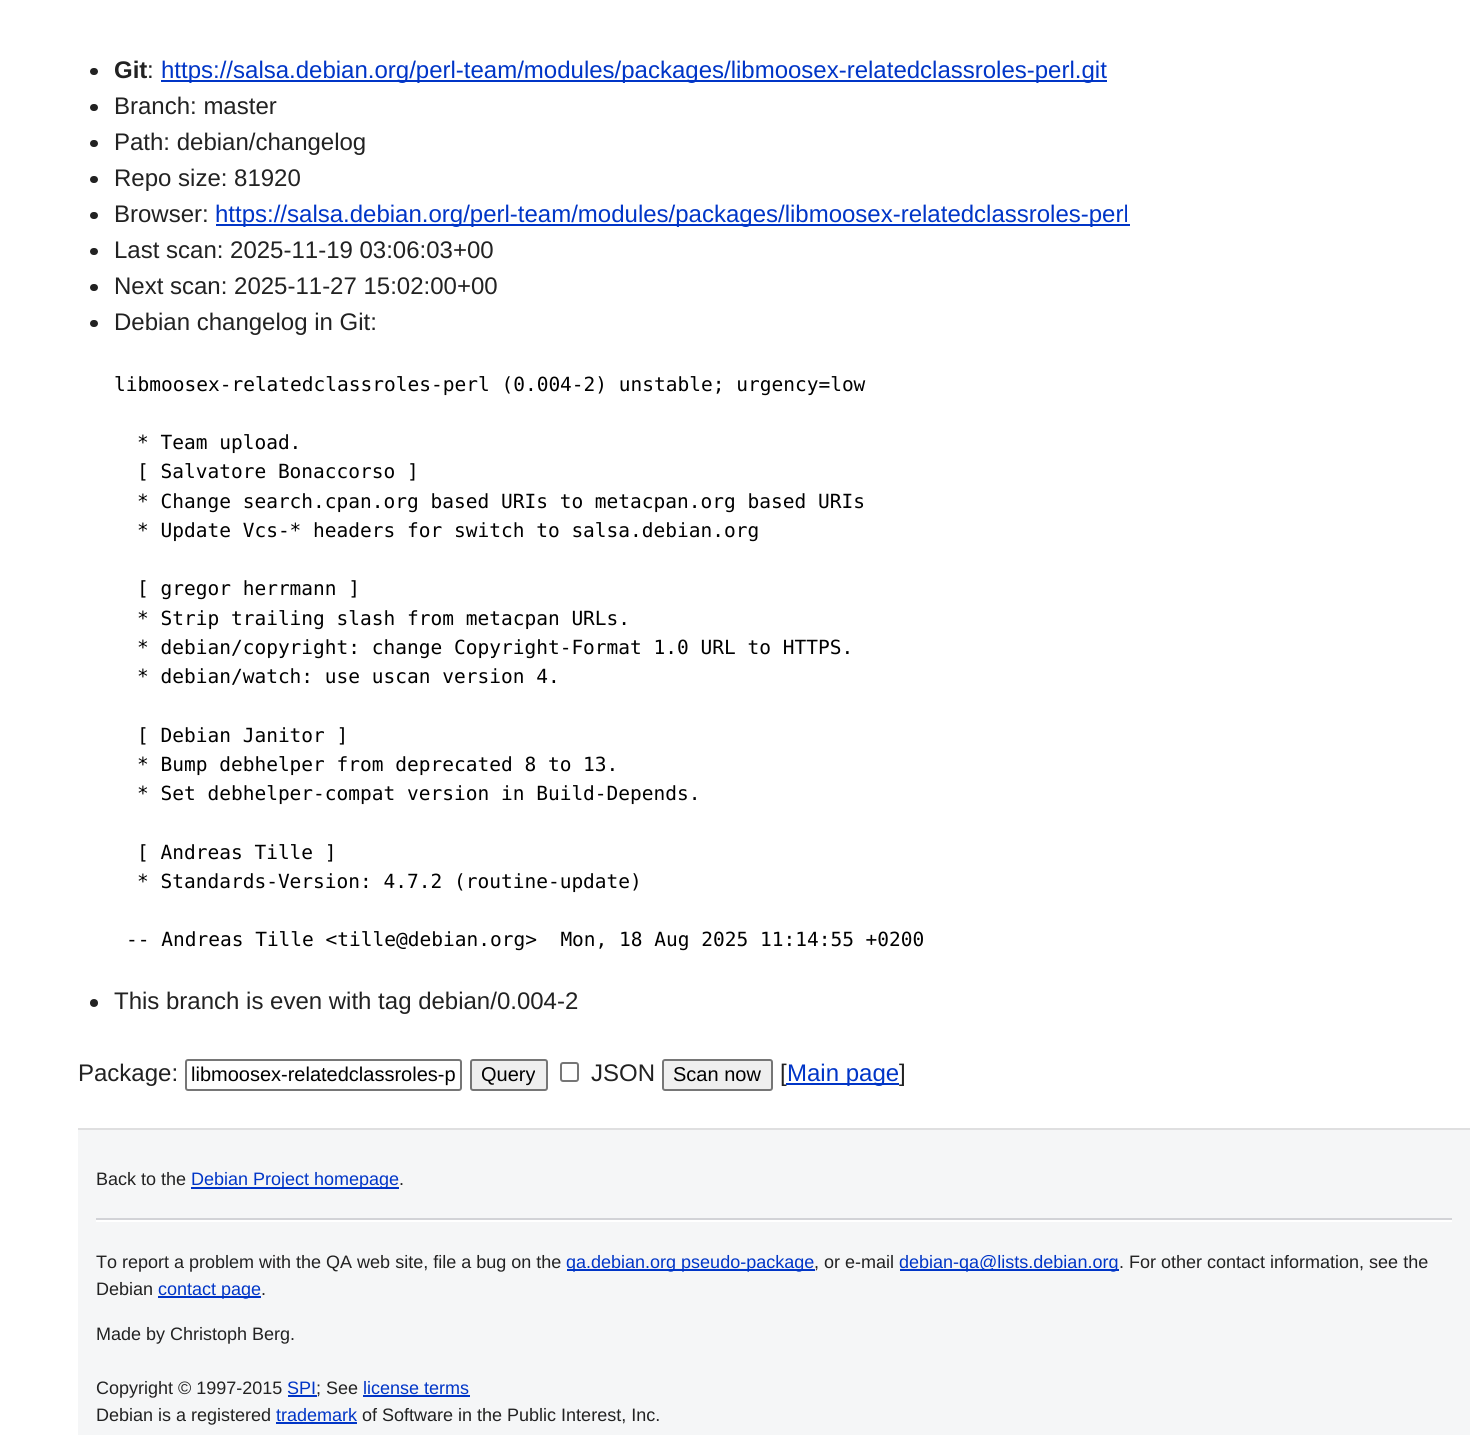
import math
import cairo



def rounded_rect(context, x, y, w, h, r):
    context.new_sub_path()
    for i, (u, v) in enumerate([(x + w - r, y + h - r), (x + r, y + h - r), (x + r, y + r), (x + w - r, y + r)]):
        context.arc(u, v, r, i * math.pi / 2, (i + 1) * math.pi / 2)
    context.close_path()


def draw(context):
    context.set_source_rgb(1, 1, 1)
    context.paint()
    context.set_source_rgb(34 / 255, 34 / 255, 34 / 255)
    rounded_rect(context, 90, 68, 8, 7, 3.5)
    context.fill()
    context.set_source_rgb(0, 53 / 255, 199 / 255)
    context.rectangle(161, 80, 946, 2)
    context.fill()
    context.set_source_rgb(34 / 255, 34 / 255, 34 / 255)
    rounded_rect(context, 90, 104, 8, 7, 3.5)
    context.fill()
    rounded_rect(context, 90, 140, 8, 7, 3.5)
    context.fill()
    rounded_rect(context, 90, 176, 8, 7, 3.5)
    context.fill()
    rounded_rect(context, 90, 212, 8, 7, 3.5)
    context.fill()
    context.set_source_rgb(0, 53 / 255, 199 / 255)
    context.rectangle(216, 224, 914, 2)
    context.fill()
    context.set_source_rgb(34 / 255, 34 / 255, 34 / 255)
    rounded_rect(context, 90, 248, 8, 7, 3.5)
    context.fill()
    rounded_rect(context, 90, 284, 8, 7, 3.5)
    context.fill()
    rounded_rect(context, 90, 320, 8, 7, 3.5)
    context.fill()
    context.arc(94, 1003, 4, 0, 2 * math.pi)
    context.fill()
    rounded_rect(context, 186, 1060, 275, 30, 2)
    context.set_source_rgb(118 / 255, 118 / 255, 118 / 255)
    context.stroke()
    context.set_source_rgb(239 / 255, 239 / 255, 239 / 255)
    rounded_rect(context, 471, 1060, 76, 30, 2)
    context.fill_preserve()
    context.set_source_rgb(118 / 255, 118 / 255, 118 / 255)
    context.stroke()
    rounded_rect(context, 561, 1063, 17, 18, 2)
    context.stroke()
    context.set_source_rgb(239 / 255, 239 / 255, 239 / 255)
    rounded_rect(context, 663, 1060, 109, 30, 2)
    context.fill_preserve()
    context.set_source_rgb(118 / 255, 118 / 255, 118 / 255)
    context.stroke()
    context.set_source_rgb(245 / 255, 246 / 255, 247 / 255)
    context.rectangle(78, 1130, 1392, 305)
    context.fill()
    context.set_source_rgb(223 / 255, 223 / 255, 224 / 255)
    context.rectangle(78, 1128, 1392, 2)
    context.fill()
    context.set_source_rgb(0, 53 / 255, 199 / 255)
    context.rectangle(191, 1187, 208, 2)
    context.fill()
    context.set_source_rgb(210 / 255, 211 / 255, 215 / 255)
    context.rectangle(96, 1218, 1356, 2)
    context.fill()
    context.set_source_rgb(1, 1, 1)
    context.rectangle(96, 1220, 1356, 2)
    context.fill()
    context.set_source_rgb(0, 53 / 255, 199 / 255)
    context.rectangle(567, 1269, 248, 2)
    context.fill()
    context.rectangle(900, 1269, 219, 2)
    context.fill()
    context.rectangle(158, 1296, 103, 2)
    context.fill()
    context.rectangle(288, 1395, 29, 2)
    context.fill()
    context.rectangle(363, 1395, 107, 2)
    context.fill()
    context.rectangle(276, 1422, 81, 2)
    context.fill()
    context.select_font_face("Liberation Sans", cairo.FontSlant.NORMAL, cairo.FontWeight.BOLD)
    context.set_font_size(24)
    context.set_source_rgb(34 / 255, 34 / 255, 34 / 255)
    context.move_to(114, 78)
    context.show_text("Git")
    context.select_font_face("Liberation Sans")
    context.move_to(147, 78)
    context.show_text(":")
    context.set_source_rgb(0, 53 / 255, 199 / 255)
    context.move_to(161, 78)
    context.show_text("https://salsa.debian.org/perl-team/modules/packages/libmoosex-relatedclassroles-perl.git")
    context.set_source_rgb(34 / 255, 34 / 255, 34 / 255)
    context.move_to(114, 114)
    context.show_text("Branch: master")
    context.move_to(114, 150)
    context.show_text("Path: debian/changelog")
    context.move_to(114, 186)
    context.show_text("Repo size: 81920")
    context.move_to(114, 222)
    context.show_text("Browser:")
    context.set_source_rgb(0, 53 / 255, 199 / 255)
    context.move_to(215, 222)
    context.show_text("https://salsa.debian.org/perl-team/modules/packages/libmoosex-relatedclassroles-perl")
    context.set_source_rgb(34 / 255, 34 / 255, 34 / 255)
    context.move_to(114, 258)
    context.show_text("Last scan: 2025-11-19 03:06:03+00")
    context.move_to(114, 294)
    context.show_text("Next scan: 2025-11-27 15:02:00+00")
    context.move_to(114, 330)
    context.show_text("Debian changelog in Git:")
    context.select_font_face("DejaVu Sans Mono")
    context.set_font_size(19.5)
    context.set_source_rgb(0, 0, 0)
    context.move_to(114, 391)
    context.show_text("libmoosex-relatedclassroles-perl (0.004-2) unstable; urgency=low")
    context.move_to(137, 449)
    context.show_text("* Team upload.")
    context.move_to(137, 478)
    context.show_text("[ Salvatore Bonaccorso ]")
    context.move_to(137, 508)
    context.show_text("* Change search.cpan.org based URIs to metacpan.org based URIs")
    context.move_to(137, 537)
    context.show_text("* Update Vcs-* headers for switch to salsa.debian.org")
    context.move_to(137, 595)
    context.show_text("[ gregor herrmann ]")
    context.move_to(137, 625)
    context.show_text("* Strip trailing slash from metacpan URLs.")
    context.move_to(137, 654)
    context.show_text("* debian/copyright: change Copyright-Format 1.0 URL to HTTPS.")
    context.move_to(137, 683)
    context.show_text("* debian/watch: use uscan version 4.")
    context.move_to(137, 742)
    context.show_text("[ Debian Janitor ]")
    context.move_to(137, 771)
    context.show_text("* Bump debhelper from deprecated 8 to 13.")
    context.move_to(137, 800)
    context.show_text("* Set debhelper-compat version in Build-Depends.")
    context.move_to(137, 859)
    context.show_text("[ Andreas Tille ]")
    context.move_to(137, 888)
    context.show_text("* Standards-Version: 4.7.2 (routine-update)")
    context.move_to(126, 946)
    context.show_text("-- Andreas Tille <tille@debian.org>  Mon, 18 Aug 2025 11:14:55 +0200")
    context.select_font_face("Liberation Sans")
    context.set_font_size(24)
    context.set_source_rgb(34 / 255, 34 / 255, 34 / 255)
    context.move_to(114, 1009)
    context.show_text("This branch is even with tag debian/0.004-2")
    context.move_to(78, 1081)
    context.show_text("Package:")
    context.set_font_size(20)
    context.set_source_rgb(0, 0, 0)
    context.move_to(191, 1081)
    context.show_text("libmoosex-relatedclassroles-p")
    context.move_to(481, 1081)
    context.show_text("Query")
    context.set_font_size(24)
    context.set_source_rgb(34 / 255, 34 / 255, 34 / 255)
    context.move_to(591, 1081)
    context.show_text("JSON")
    context.set_font_size(20)
    context.set_source_rgb(0, 0, 0)
    context.move_to(673, 1081)
    context.show_text("Scan now")
    context.set_font_size(24)
    context.set_source_rgb(34 / 255, 34 / 255, 34 / 255)
    context.move_to(780, 1081)
    context.show_text("[")
    context.set_source_rgb(0, 53 / 255, 199 / 255)
    context.rectangle(786, 1083, 113, 2)
    context.fill()
    context.move_to(787, 1081)
    context.show_text("Main page")
    context.set_source_rgb(34 / 255, 34 / 255, 34 / 255)
    context.move_to(899, 1081)
    context.show_text("]")
    context.set_font_size(18)
    context.move_to(96, 1185)
    context.show_text("Back to the")
    context.set_source_rgb(0, 53 / 255, 199 / 255)
    context.move_to(191, 1185)
    context.show_text("Debian Project homepage")
    context.set_source_rgb(34 / 255, 34 / 255, 34 / 255)
    context.move_to(399, 1185)
    context.show_text(".")
    context.move_to(96, 1268)
    context.show_text("To report a problem with the QA web site, file a bug on the")
    context.set_source_rgb(0, 53 / 255, 199 / 255)
    context.move_to(566, 1268)
    context.show_text("qa.debian.org pseudo-package")
    context.set_source_rgb(34 / 255, 34 / 255, 34 / 255)
    context.move_to(814, 1268)
    context.show_text(", or e-mail")
    context.set_source_rgb(0, 53 / 255, 199 / 255)
    context.move_to(899, 1268)
    context.show_text("debian-qa@lists.debian.org")
    context.set_source_rgb(34 / 255, 34 / 255, 34 / 255)
    context.move_to(1119, 1268)
    context.show_text(". For other contact information, see the")
    context.move_to(96, 1295)
    context.show_text("Debian")
    context.set_source_rgb(0, 53 / 255, 199 / 255)
    context.move_to(158, 1295)
    context.show_text("contact page")
    context.set_source_rgb(34 / 255, 34 / 255, 34 / 255)
    context.move_to(261, 1295)
    context.show_text(".")
    context.move_to(96, 1340)
    context.show_text("Made by Christoph Berg.")
    context.move_to(96, 1394)
    context.show_text("Copyright © 1997-2015")
    context.set_source_rgb(0, 53 / 255, 199 / 255)
    context.move_to(287, 1394)
    context.show_text("SPI")
    context.set_source_rgb(34 / 255, 34 / 255, 34 / 255)
    context.move_to(316, 1394)
    context.show_text("; See")
    context.set_source_rgb(0, 53 / 255, 199 / 255)
    context.move_to(363, 1394)
    context.show_text("license terms")
    context.set_source_rgb(34 / 255, 34 / 255, 34 / 255)
    context.move_to(96, 1421)
    context.show_text("Debian is a registered")
    context.set_source_rgb(0, 53 / 255, 199 / 255)
    context.move_to(276, 1421)
    context.show_text("trademark")
    context.set_source_rgb(34 / 255, 34 / 255, 34 / 255)
    context.move_to(362, 1421)
    context.show_text("of Software in the Public Interest, Inc.")


surface = cairo.ImageSurface(cairo.Format.RGB24, 1484, 1435)
context = cairo.Context(surface)
options = cairo.FontOptions()
options.set_hint_metrics(cairo.HintMetrics.OFF)
options.set_hint_style(cairo.HintStyle.NONE)
context.set_font_options(options)
context.set_miter_limit(4)
draw(context)
surface.write_to_png("out.png")
